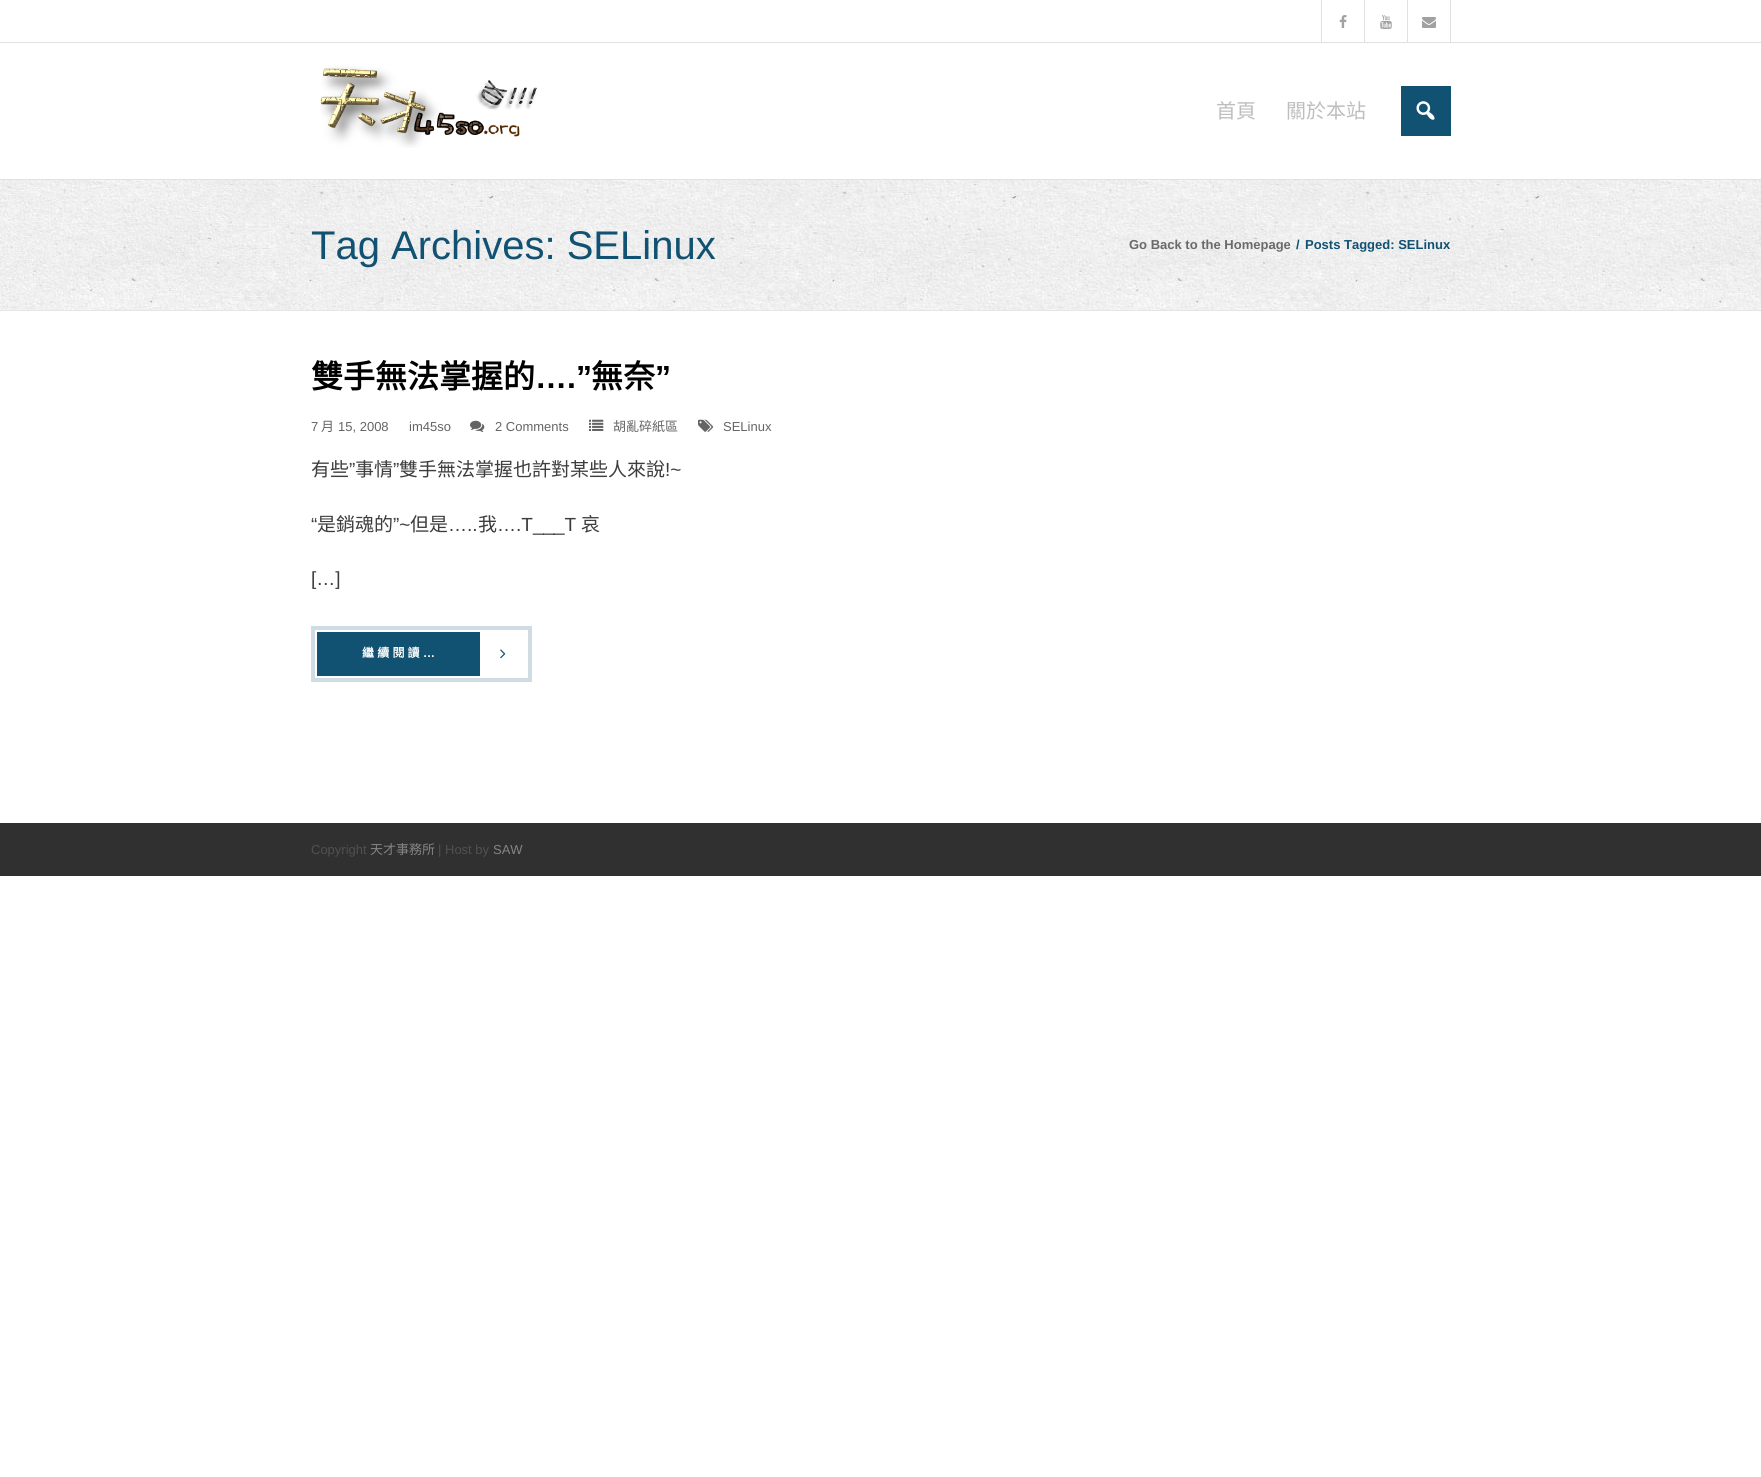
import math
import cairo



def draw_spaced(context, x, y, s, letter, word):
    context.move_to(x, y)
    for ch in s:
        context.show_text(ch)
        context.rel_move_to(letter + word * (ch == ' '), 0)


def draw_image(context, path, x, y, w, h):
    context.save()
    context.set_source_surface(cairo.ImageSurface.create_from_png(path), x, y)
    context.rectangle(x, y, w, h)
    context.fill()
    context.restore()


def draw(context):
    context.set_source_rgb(1, 1, 1)
    context.paint()
    context.set_source_rgb(225 / 255, 225 / 255, 225 / 255)
    context.rectangle(0, 42, 1761, 1)
    context.fill()
    context.rectangle(1321, 0, 1, 42)
    context.fill()
    draw_image(context, "images/1.png", 1339, 15, 8, 13)
    context.rectangle(1364, 0, 1, 42)
    context.fill()
    draw_image(context, "images/2.png", 1380, 15, 12, 14)
    context.rectangle(1450, 0, 1, 42)
    context.fill()
    context.rectangle(1407, 0, 1, 42)
    context.fill()
    draw_image(context, "images/3.png", 1422, 17, 14, 11)
    context.rectangle(0, 179, 1761, 1)
    context.fill()
    draw_image(context, "images/4.png", 320, 66, 217, 82)
    context.set_source_rgb(17 / 255, 81 / 255, 114 / 255)
    context.rectangle(1401, 86, 50, 50)
    context.fill()
    draw_image(context, "images/5.png", 1416, 101, 19, 19)
    draw_image(context, "images/6.png", 0, 180, 1761, 130)
    context.set_source_rgb(229 / 255, 229 / 255, 229 / 255)
    context.rectangle(0, 310, 1761, 1)
    context.fill()
    draw_image(context, "images/7.png", 470, 420, 15, 12)
    draw_image(context, "images/8.png", 589, 419, 15, 12)
    draw_image(context, "images/9.png", 698, 419, 16, 13)
    context.rectangle(313, 628, 217, 52)
    context.set_source_rgb(207 / 255, 220 / 255, 227 / 255)
    context.set_line_width(4)
    context.stroke()
    context.set_source_rgb(17 / 255, 81 / 255, 114 / 255)
    context.rectangle(317, 632, 163, 44)
    context.fill()
    draw_image(context, "images/10.png", 500, 649, 6, 10)
    context.set_source_rgb(48 / 255, 48 / 255, 48 / 255)
    context.rectangle(0, 823, 1761, 53)
    context.fill()
    context.select_font_face("Noto Sans CJK TC")
    context.set_font_size(20)
    context.set_source_rgb(190 / 255, 190 / 255, 190 / 255)
    context.move_to(1216, 118)
    context.show_text("首頁")
    context.move_to(1286, 118)
    context.show_text("關於本站")
    context.select_font_face("Liberation Sans")
    context.set_font_size(40)
    context.set_source_rgb(17 / 255, 81 / 255, 114 / 255)
    context.move_to(311, 259)
    context.show_text("Tag Archives: SELinux")
    context.select_font_face("Liberation Sans", cairo.FontSlant.NORMAL, cairo.FontWeight.BOLD)
    context.set_font_size(13)
    context.set_source_rgb(106 / 255, 106 / 255, 106 / 255)
    context.move_to(1129, 249)
    context.show_text("Go Back to the Homepage")
    context.set_source_rgb(17 / 255, 81 / 255, 114 / 255)
    context.move_to(1296, 249)
    context.show_text("/")
    context.move_to(1305, 249)
    context.show_text("Posts Tagged: SELinux")
    context.select_font_face("Noto Sans CJK TC", cairo.FontSlant.NORMAL, cairo.FontWeight.BOLD)
    context.set_font_size(32)
    context.set_source_rgb(0, 0, 0)
    context.move_to(311, 388)
    context.show_text("雙手無法掌握的")
    context.select_font_face("Liberation Sans", cairo.FontSlant.NORMAL, cairo.FontWeight.BOLD)
    context.move_to(535, 388)
    context.show_text("….”")
    context.select_font_face("Noto Sans CJK TC", cairo.FontSlant.NORMAL, cairo.FontWeight.BOLD)
    context.move_to(591, 388)
    context.show_text("無奈")
    context.select_font_face("Liberation Sans", cairo.FontSlant.NORMAL, cairo.FontWeight.BOLD)
    context.move_to(655, 388)
    context.show_text("”")
    context.select_font_face("Liberation Sans")
    context.set_font_size(13)
    context.set_source_rgb(100 / 255, 100 / 255, 100 / 255)
    context.move_to(311, 431)
    context.show_text("7")
    context.select_font_face("Noto Sans CJK TC")
    context.move_to(321, 431)
    context.show_text("月")
    context.select_font_face("Liberation Sans")
    context.move_to(338, 431)
    context.show_text("15, 2008")
    context.move_to(409, 431)
    context.show_text("im45so")
    context.move_to(495, 431)
    context.show_text("2 Comments")
    context.select_font_face("Noto Sans CJK TC")
    context.move_to(613, 431)
    context.show_text("胡亂碎紙區")
    context.select_font_face("Liberation Sans")
    context.move_to(723, 431)
    context.show_text("SELinux")
    context.select_font_face("Noto Sans CJK TC")
    context.set_font_size(19)
    context.set_source_rgb(61 / 255, 61 / 255, 61 / 255)
    context.move_to(311, 476)
    context.show_text("有些")
    context.select_font_face("Liberation Sans")
    context.move_to(349, 476)
    context.show_text("”")
    context.select_font_face("Noto Sans CJK TC")
    context.move_to(355, 476)
    context.show_text("事情")
    context.select_font_face("Liberation Sans")
    context.move_to(393, 476)
    context.show_text("”")
    context.select_font_face("Noto Sans CJK TC")
    context.move_to(399, 476)
    context.show_text("雙手無法掌握也許對某些人來說")
    context.select_font_face("Liberation Sans")
    context.move_to(665, 476)
    context.show_text("!~")
    context.move_to(311, 531)
    context.show_text("“")
    context.select_font_face("Noto Sans CJK TC")
    context.move_to(317, 531)
    context.show_text("是銷魂的")
    context.select_font_face("Liberation Sans")
    context.move_to(393, 531)
    context.show_text("”~")
    context.select_font_face("Noto Sans CJK TC")
    context.move_to(410, 531)
    context.show_text("但是")
    context.select_font_face("Liberation Sans")
    context.move_to(448, 531)
    context.show_text("…..")
    context.select_font_face("Noto Sans CJK TC")
    context.move_to(478, 531)
    context.show_text("我")
    context.select_font_face("Liberation Sans")
    context.move_to(497, 531)
    context.show_text("….T___T")
    context.select_font_face("Noto Sans CJK TC")
    context.move_to(581, 531)
    context.show_text("哀")
    context.select_font_face("Liberation Sans")
    context.move_to(311, 585)
    context.show_text("[…]")
    context.select_font_face("Noto Sans CJK TC", cairo.FontSlant.NORMAL, cairo.FontWeight.BOLD)
    context.set_font_size(12)
    context.set_source_rgb(1, 1, 1)
    draw_spaced(context, 362, 657, "繼 續 閱 讀", 0, 0.5)
    context.select_font_face("Liberation Sans", cairo.FontSlant.NORMAL, cairo.FontWeight.BOLD)
    context.move_to(423, 657)
    context.show_text("…")
    context.select_font_face("Liberation Sans")
    context.set_font_size(13)
    context.set_source_rgb(80 / 255, 80 / 255, 80 / 255)
    context.move_to(311, 854)
    context.show_text("Copyright")
    context.select_font_face("Noto Sans CJK TC")
    context.set_source_rgb(132 / 255, 132 / 255, 132 / 255)
    context.move_to(370, 854)
    context.show_text("天才事務所")
    context.select_font_face("Liberation Sans")
    context.set_source_rgb(80 / 255, 80 / 255, 80 / 255)
    context.move_to(438, 854)
    context.show_text("| Host by")
    context.set_source_rgb(132 / 255, 132 / 255, 132 / 255)
    context.move_to(493, 854)
    context.show_text("SAW")


surface = cairo.ImageSurface(cairo.Format.RGB24, 1761, 1477)
context = cairo.Context(surface)
options = cairo.FontOptions()
options.set_hint_metrics(cairo.HintMetrics.OFF)
options.set_hint_style(cairo.HintStyle.NONE)
context.set_font_options(options)
context.set_miter_limit(4)
draw(context)
surface.write_to_png("out.png")
